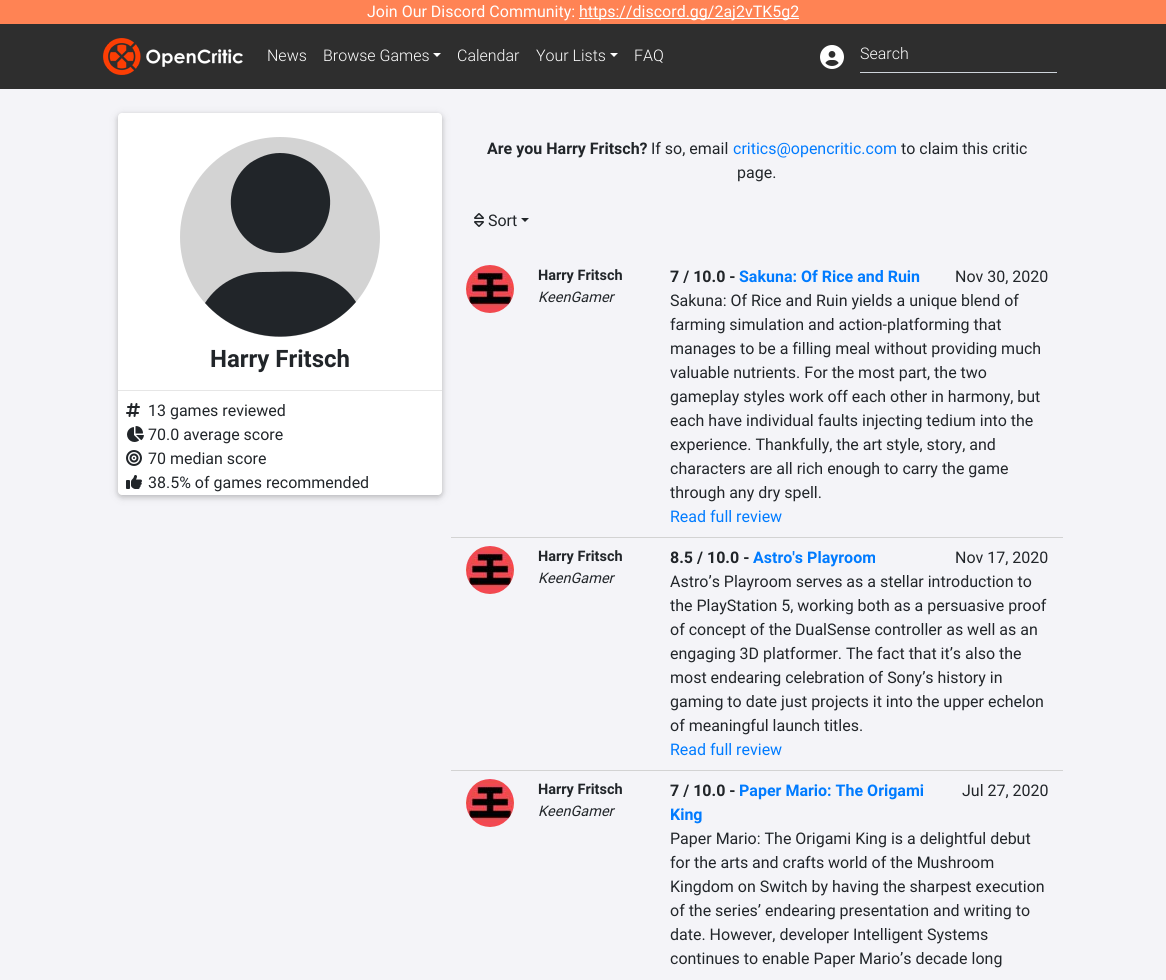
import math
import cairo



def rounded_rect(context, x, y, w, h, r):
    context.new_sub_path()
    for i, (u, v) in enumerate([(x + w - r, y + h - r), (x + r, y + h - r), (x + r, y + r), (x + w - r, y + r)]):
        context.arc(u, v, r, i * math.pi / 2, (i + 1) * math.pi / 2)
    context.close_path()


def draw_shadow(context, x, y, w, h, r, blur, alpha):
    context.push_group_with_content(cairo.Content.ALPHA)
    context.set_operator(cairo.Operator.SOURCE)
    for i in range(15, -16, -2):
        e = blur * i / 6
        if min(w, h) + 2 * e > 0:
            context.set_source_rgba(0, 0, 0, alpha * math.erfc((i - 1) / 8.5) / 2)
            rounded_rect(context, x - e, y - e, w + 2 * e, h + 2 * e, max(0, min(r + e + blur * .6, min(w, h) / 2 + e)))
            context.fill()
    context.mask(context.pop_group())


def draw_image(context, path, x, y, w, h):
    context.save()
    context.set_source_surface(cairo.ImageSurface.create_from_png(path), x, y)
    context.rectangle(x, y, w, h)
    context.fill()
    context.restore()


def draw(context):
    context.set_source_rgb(244 / 255, 244 / 255, 248 / 255)
    context.paint()
    context.set_source_rgb(1, 131 / 255, 84 / 255)
    context.rectangle(0, 0, 1166, 24)
    context.fill()
    context.set_source_rgb(1, 1, 1)
    context.rectangle(579, 18, 220, 1)
    context.fill()
    context.set_source_rgb(46 / 255, 46 / 255, 46 / 255)
    context.rectangle(0, 24, 1166, 65)
    context.fill()
    draw_image(context, "images/1.png", 103, 38, 140, 37)
    context.set_source_rgb(1, 1, 1)
    context.new_path()
    context.move_to(433, 53)
    context.line_to(441, 53)
    context.line_to(437, 57)
    context.close_path()
    context.fill()
    context.new_path()
    context.move_to(610, 53)
    context.line_to(618, 53)
    context.line_to(614, 57)
    context.close_path()
    context.fill()
    draw_image(context, "images/2.png", 820, 45, 24, 24)
    context.set_source_rgb(206 / 255, 212 / 255, 218 / 255)
    context.rectangle(860, 72, 197, 1)
    context.fill()
    context.set_source_rgb(0, 0, 0)
    draw_shadow(context, 118, 115, 324, 382, 4, 5, 0.12)
    draw_shadow(context, 118, 115, 324, 382, 4, 2.5, 0.16)
    context.set_source_rgb(1, 1, 1)
    rounded_rect(context, 118, 113, 324, 382, 4)
    context.fill()
    context.set_source_rgb(211 / 255, 211 / 255, 211 / 255)
    context.arc(280, 237, 100, 0, 2 * math.pi)
    context.fill()
    context.set_source_rgb(33 / 255, 37 / 255, 41 / 255)
    context.set_fill_rule(cairo.FillRule.EVEN_ODD)
    context.new_path()
    context.move_to(263, 272)
    context.curve_to(276, 272, 288, 271, 301, 272)
    context.curve_to(323, 273, 344, 283, 356, 302)
    context.curve_to(316, 348, 245, 348, 205, 303)
    context.curve_to(218, 283, 239, 272, 263, 272)
    context.close_path()
    context.move_to(280, 253)
    context.curve_to(233, 253, 213, 192, 250, 163)
    context.curve_to(259, 157, 269, 153, 280, 153)
    context.curve_to(292, 153, 302, 157, 311, 163)
    context.curve_to(348, 192, 328, 253, 280, 253)
    context.close_path()
    context.fill()
    context.set_source_rgb(230 / 255, 230 / 255, 230 / 255)
    context.rectangle(118, 390, 324, 1)
    context.fill()
    draw_image(context, "images/3.png", 126, 403, 14, 14)
    draw_image(context, "images/4.png", 127, 426, 17, 16)
    draw_image(context, "images/5.png", 126, 450, 16, 16)
    draw_image(context, "images/6.png", 126, 475, 16, 14)
    draw_image(context, "images/7.png", 474, 213, 10, 14)
    context.set_source_rgb(33 / 255, 37 / 255, 41 / 255)
    context.set_fill_rule(cairo.FillRule.WINDING)
    context.new_path()
    context.move_to(521, 218)
    context.line_to(529, 218)
    context.line_to(525, 222)
    context.close_path()
    context.fill()
    context.set_source_rgb(211 / 255, 211 / 255, 211 / 255)
    context.rectangle(451, 537, 612, 1)
    context.fill()
    draw_image(context, "images/8.png", 466, 265, 48, 48)
    context.rectangle(451, 770, 612, 1)
    context.fill()
    draw_image(context, "images/8.png", 466, 546, 48, 48)
    draw_image(context, "images/8.png", 466, 779, 48, 48)
    context.select_font_face("Roboto")
    context.set_font_size(16)
    context.set_source_rgb(1, 1, 1)
    context.move_to(367, 17)
    context.show_text("Join Our Discord Community:")
    context.move_to(579, 17)
    context.show_text("https://discord.gg/2aj2vTK5g2")
    context.select_font_face("Roboto Light")
    context.move_to(267, 61)
    context.show_text("News")
    context.move_to(323, 61)
    context.show_text("Browse Games")
    context.move_to(457, 61)
    context.show_text("Calendar")
    context.move_to(536, 61)
    context.show_text("Your Lists")
    context.move_to(634, 61)
    context.show_text("FAQ")
    context.move_to(860, 59)
    context.show_text("Search")
    context.select_font_face("Roboto", cairo.FontSlant.NORMAL, cairo.FontWeight.BOLD)
    context.set_font_size(24)
    context.set_source_rgb(33 / 255, 37 / 255, 41 / 255)
    context.move_to(210, 367)
    context.show_text("Harry Fritsch")
    context.select_font_face("Roboto")
    context.set_font_size(16)
    context.move_to(148, 416)
    context.show_text("13 games reviewed")
    context.move_to(148, 440)
    context.show_text("70.0 average score")
    context.move_to(148, 464)
    context.show_text("70 median score")
    context.move_to(148, 488)
    context.show_text("38.5% of games recommended")
    context.select_font_face("Roboto", cairo.FontSlant.NORMAL, cairo.FontWeight.BOLD)
    context.move_to(487, 154)
    context.show_text("Are you Harry Fritsch?")
    context.select_font_face("Roboto")
    context.move_to(651, 154)
    context.show_text("If so, email")
    context.set_source_rgb(0, 123 / 255, 1)
    context.move_to(733, 154)
    context.show_text("critics@opencritic.com")
    context.set_source_rgb(33 / 255, 37 / 255, 41 / 255)
    context.move_to(901, 154)
    context.show_text("to claim this critic")
    context.move_to(737, 178)
    context.show_text("page.")
    context.move_to(488, 226)
    context.show_text("Sort")
    context.select_font_face("Roboto", cairo.FontSlant.NORMAL, cairo.FontWeight.BOLD)
    context.set_font_size(14.5)
    context.move_to(538, 280)
    context.show_text("Harry Fritsch")
    context.select_font_face("Roboto", cairo.FontSlant.ITALIC)
    context.move_to(538, 302)
    context.show_text("KeenGamer")
    context.select_font_face("Roboto", cairo.FontSlant.NORMAL, cairo.FontWeight.BOLD)
    context.set_font_size(16)
    context.move_to(670, 282)
    context.show_text("7 / 10.0 -")
    context.set_source_rgb(0, 123 / 255, 1)
    context.move_to(739, 282)
    context.show_text("Sakuna: Of Rice and Ruin")
    context.select_font_face("Roboto")
    context.set_source_rgb(33 / 255, 37 / 255, 41 / 255)
    context.move_to(955, 282)
    context.show_text("Nov 30, 2020")
    context.move_to(670, 306)
    context.show_text("Sakuna: Of Rice and Ruin yields a unique blend of")
    context.move_to(670, 330)
    context.show_text("farming simulation and action-platforming that")
    context.move_to(670, 354)
    context.show_text("manages to be a filling meal without providing much")
    context.move_to(670, 378)
    context.show_text("valuable nutrients. For the most part, the two")
    context.move_to(670, 402)
    context.show_text("gameplay styles work off each other in harmony, but")
    context.move_to(670, 426)
    context.show_text("each have individual faults injecting tedium into the")
    context.move_to(670, 450)
    context.show_text("experience. Thankfully, the art style, story, and")
    context.move_to(670, 474)
    context.show_text("characters are all rich enough to carry the game")
    context.move_to(670, 498)
    context.show_text("through any dry spell.")
    context.set_source_rgb(0, 123 / 255, 1)
    context.move_to(670, 522)
    context.show_text("Read full review")
    context.select_font_face("Roboto", cairo.FontSlant.NORMAL, cairo.FontWeight.BOLD)
    context.set_font_size(14.5)
    context.set_source_rgb(33 / 255, 37 / 255, 41 / 255)
    context.move_to(538, 561)
    context.show_text("Harry Fritsch")
    context.select_font_face("Roboto", cairo.FontSlant.ITALIC)
    context.move_to(538, 583)
    context.show_text("KeenGamer")
    context.select_font_face("Roboto", cairo.FontSlant.NORMAL, cairo.FontWeight.BOLD)
    context.set_font_size(16)
    context.move_to(670, 563)
    context.show_text("8.5 / 10.0 -")
    context.set_source_rgb(0, 123 / 255, 1)
    context.move_to(753, 563)
    context.show_text("Astro's Playroom")
    context.select_font_face("Roboto")
    context.set_source_rgb(33 / 255, 37 / 255, 41 / 255)
    context.move_to(955, 563)
    context.show_text("Nov 17, 2020")
    context.move_to(670, 587)
    context.show_text("Astro’s Playroom serves as a stellar introduction to")
    context.move_to(670, 611)
    context.show_text("the PlayStation 5, working both as a persuasive proof")
    context.move_to(670, 635)
    context.show_text("of concept of the DualSense controller as well as an")
    context.move_to(670, 659)
    context.show_text("engaging 3D platformer. The fact that it’s also the")
    context.move_to(670, 683)
    context.show_text("most endearing celebration of Sony’s history in")
    context.move_to(670, 707)
    context.show_text("gaming to date just projects it into the upper echelon")
    context.move_to(670, 731)
    context.show_text("of meaningful launch titles.")
    context.set_source_rgb(0, 123 / 255, 1)
    context.move_to(670, 755)
    context.show_text("Read full review")
    context.select_font_face("Roboto", cairo.FontSlant.NORMAL, cairo.FontWeight.BOLD)
    context.set_font_size(14.5)
    context.set_source_rgb(33 / 255, 37 / 255, 41 / 255)
    context.move_to(538, 794)
    context.show_text("Harry Fritsch")
    context.select_font_face("Roboto", cairo.FontSlant.ITALIC)
    context.move_to(538, 816)
    context.show_text("KeenGamer")
    context.select_font_face("Roboto", cairo.FontSlant.NORMAL, cairo.FontWeight.BOLD)
    context.set_font_size(16)
    context.move_to(670, 796)
    context.show_text("7 / 10.0 -")
    context.set_source_rgb(0, 123 / 255, 1)
    context.move_to(739, 796)
    context.show_text("Paper Mario: The Origami")
    context.move_to(670, 820)
    context.show_text("King")
    context.select_font_face("Roboto")
    context.set_source_rgb(33 / 255, 37 / 255, 41 / 255)
    context.move_to(962, 796)
    context.show_text("Jul 27, 2020")
    context.move_to(670, 844)
    context.show_text("Paper Mario: The Origami King is a delightful debut")
    context.move_to(670, 868)
    context.show_text("for the arts and crafts world of the Mushroom")
    context.move_to(670, 892)
    context.show_text("Kingdom on Switch by having the sharpest execution")
    context.move_to(670, 916)
    context.show_text("of the series’ endearing presentation and writing to")
    context.move_to(670, 940)
    context.show_text("date. However, developer Intelligent Systems")
    context.move_to(670, 964)
    context.show_text("continues to enable Paper Mario’s decade long")


surface = cairo.ImageSurface(cairo.Format.RGB24, 1166, 980)
context = cairo.Context(surface)
options = cairo.FontOptions()
options.set_hint_metrics(cairo.HintMetrics.OFF)
options.set_hint_style(cairo.HintStyle.NONE)
context.set_font_options(options)
context.set_miter_limit(4)
draw(context)
surface.write_to_png("out.png")
